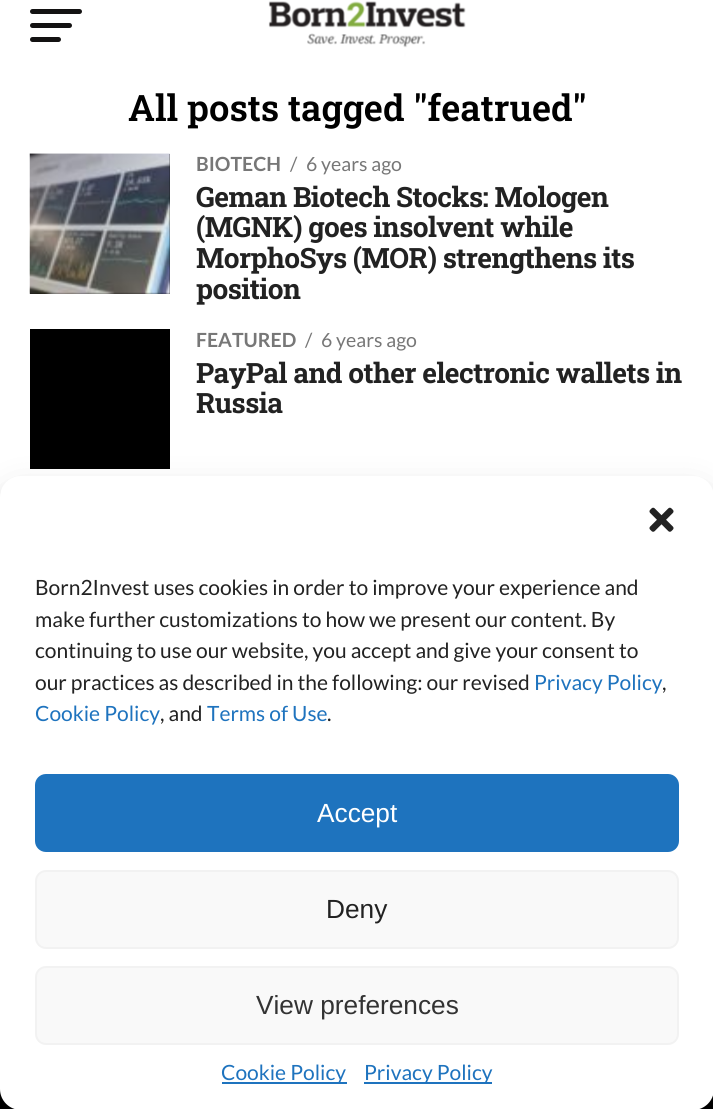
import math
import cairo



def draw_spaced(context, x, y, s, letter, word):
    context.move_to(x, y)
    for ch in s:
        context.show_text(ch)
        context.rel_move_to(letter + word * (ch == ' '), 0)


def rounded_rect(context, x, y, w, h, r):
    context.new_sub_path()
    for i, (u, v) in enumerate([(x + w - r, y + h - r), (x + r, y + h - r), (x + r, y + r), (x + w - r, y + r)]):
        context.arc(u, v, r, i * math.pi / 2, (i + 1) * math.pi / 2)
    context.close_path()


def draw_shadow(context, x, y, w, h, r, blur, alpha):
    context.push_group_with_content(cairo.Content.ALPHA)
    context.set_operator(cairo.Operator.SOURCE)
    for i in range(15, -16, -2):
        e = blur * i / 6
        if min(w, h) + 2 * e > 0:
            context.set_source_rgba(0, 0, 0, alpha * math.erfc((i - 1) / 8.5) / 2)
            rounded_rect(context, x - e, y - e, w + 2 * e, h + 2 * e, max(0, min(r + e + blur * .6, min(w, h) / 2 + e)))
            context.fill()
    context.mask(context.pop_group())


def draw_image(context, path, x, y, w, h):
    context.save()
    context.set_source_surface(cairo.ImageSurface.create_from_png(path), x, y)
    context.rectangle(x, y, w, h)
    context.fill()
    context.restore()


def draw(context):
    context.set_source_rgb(1, 1, 1)
    context.paint()
    context.set_source_rgb(19 / 255, 18 / 255, 18 / 255)
    rounded_rect(context, 30, 9, 52, 5, 2.5)
    context.fill()
    rounded_rect(context, 30, 23, 42, 5, 2.5)
    context.fill()
    rounded_rect(context, 30, 37, 31, 5, 2.5)
    context.fill()
    draw_image(context, "images/1.png", 268, 1, 198, 47)
    context.set_source_rgb(0, 0, 0)
    context.rectangle(30, 154, 140, 140)
    context.fill()
    draw_image(context, "images/2.png", 29, 153, 141, 141)
    context.rectangle(30, 329, 140, 140)
    context.fill()
    context.rectangle(0, 1089, 713, 20)
    context.fill()
    context.set_source_rgb(0, 0, 0)
    draw_shadow(context, 0, 487, 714, 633, 21, 5, 0.23)
    draw_shadow(context, 0, 494, 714, 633, 21, 17.5, 0.19)
    context.set_source_rgb(1, 1, 1)
    rounded_rect(context, 0, 476, 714, 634, 21)
    context.fill()
    draw_image(context, "images/3.png", 649, 507, 25, 25)
    context.set_source_rgb(30 / 255, 115 / 255, 190 / 255)
    rounded_rect(context, 36, 775, 642, 76, 10)
    context.fill_preserve()
    context.stroke()
    context.set_source_rgb(249 / 255, 249 / 255, 249 / 255)
    rounded_rect(context, 36, 871, 642, 77, 10)
    context.fill_preserve()
    context.set_source_rgb(242 / 255, 242 / 255, 242 / 255)
    context.stroke()
    context.set_source_rgb(249 / 255, 249 / 255, 249 / 255)
    rounded_rect(context, 36, 967, 642, 77, 10)
    context.fill_preserve()
    context.set_source_rgb(242 / 255, 242 / 255, 242 / 255)
    context.stroke()
    context.set_source_rgb(30 / 255, 115 / 255, 190 / 255)
    context.rectangle(222, 1082, 125, 2)
    context.fill()
    context.rectangle(364, 1082, 128, 2)
    context.fill()
    context.select_font_face("Roboto Slab SemiBold")
    context.set_font_size(36.4)
    context.set_source_rgb(0, 0, 0)
    context.move_to(128, 121)
    context.show_text("All posts tagged \"featrued\"")
    context.select_font_face("Lato", cairo.FontSlant.NORMAL, cairo.FontWeight.BOLD)
    context.set_font_size(19.5)
    context.set_source_rgb(119 / 255, 119 / 255, 119 / 255)
    context.move_to(196, 171)
    context.show_text("BIOTECH")
    context.select_font_face("Lato")
    context.move_to(290, 171)
    context.show_text("/")
    context.move_to(306, 171)
    context.show_text("6 years ago")
    context.select_font_face("Roboto Slab", cairo.FontSlant.NORMAL, cairo.FontWeight.BOLD)
    context.set_font_size(28)
    context.set_source_rgb(34 / 255, 34 / 255, 34 / 255)
    draw_spaced(context, 196, 207, "Geman Biotech Stocks: Mologen", -0.55, 0)
    draw_spaced(context, 196, 237, "(MGNK) goes insolvent while", -0.55, 0)
    draw_spaced(context, 196, 268, "MorphoSys (MOR) strengthens its", -0.55, 0)
    draw_spaced(context, 196, 299, "position", -0.55, 0)
    context.select_font_face("Lato", cairo.FontSlant.NORMAL, cairo.FontWeight.BOLD)
    context.set_font_size(19.5)
    context.set_source_rgb(119 / 255, 119 / 255, 119 / 255)
    context.move_to(196, 347)
    context.show_text("FEATURED")
    context.select_font_face("Lato")
    context.move_to(305, 347)
    context.show_text("/")
    context.move_to(321, 347)
    context.show_text("6 years ago")
    context.select_font_face("Roboto Slab", cairo.FontSlant.NORMAL, cairo.FontWeight.BOLD)
    context.set_font_size(28)
    context.set_source_rgb(34 / 255, 34 / 255, 34 / 255)
    draw_spaced(context, 196, 383, "PayPal and other electronic wallets in", -0.55, 0)
    draw_spaced(context, 196, 413, "Russia", -0.55, 0)
    context.select_font_face("Lato")
    context.set_font_size(21)
    context.move_to(35, 595)
    context.show_text("Born2Invest uses cookies in order to improve your experience and")
    context.move_to(35, 627)
    context.show_text("make further customizations to how we present our content. By")
    context.move_to(35, 658)
    context.show_text("continuing to use our website, you accept and give your consent to")
    context.move_to(35, 690)
    context.show_text("our practices as described in the following: our revised")
    context.set_source_rgb(30 / 255, 115 / 255, 190 / 255)
    context.move_to(534, 690)
    context.show_text("Privacy Policy")
    context.set_source_rgb(34 / 255, 34 / 255, 34 / 255)
    context.move_to(662, 690)
    context.show_text(",")
    context.set_source_rgb(30 / 255, 115 / 255, 190 / 255)
    context.move_to(35, 721)
    context.show_text("Cookie Policy")
    context.set_source_rgb(34 / 255, 34 / 255, 34 / 255)
    context.move_to(160, 721)
    context.show_text(", and")
    context.set_source_rgb(30 / 255, 115 / 255, 190 / 255)
    context.move_to(207, 721)
    context.show_text("Terms of Use")
    context.set_source_rgb(34 / 255, 34 / 255, 34 / 255)
    context.move_to(327, 721)
    context.show_text(".")
    context.select_font_face("Liberation Sans")
    context.set_font_size(26.25)
    context.set_source_rgb(1, 1, 1)
    context.move_to(317, 822)
    context.show_text("Accept")
    context.set_source_rgb(34 / 255, 34 / 255, 34 / 255)
    context.move_to(326, 918)
    context.show_text("Deny")
    context.set_source_rgb(51 / 255, 51 / 255, 51 / 255)
    context.move_to(256, 1014)
    context.show_text("View preferences")
    context.select_font_face("Lato")
    context.set_font_size(21)
    context.set_source_rgb(30 / 255, 115 / 255, 190 / 255)
    context.move_to(221, 1080)
    context.show_text("Cookie Policy")
    context.move_to(364, 1080)
    context.show_text("Privacy Policy")


surface = cairo.ImageSurface(cairo.Format.RGB24, 713, 1109)
context = cairo.Context(surface)
options = cairo.FontOptions()
options.set_hint_metrics(cairo.HintMetrics.OFF)
options.set_hint_style(cairo.HintStyle.NONE)
context.set_font_options(options)
context.set_miter_limit(4)
draw(context)
surface.write_to_png("out.png")
